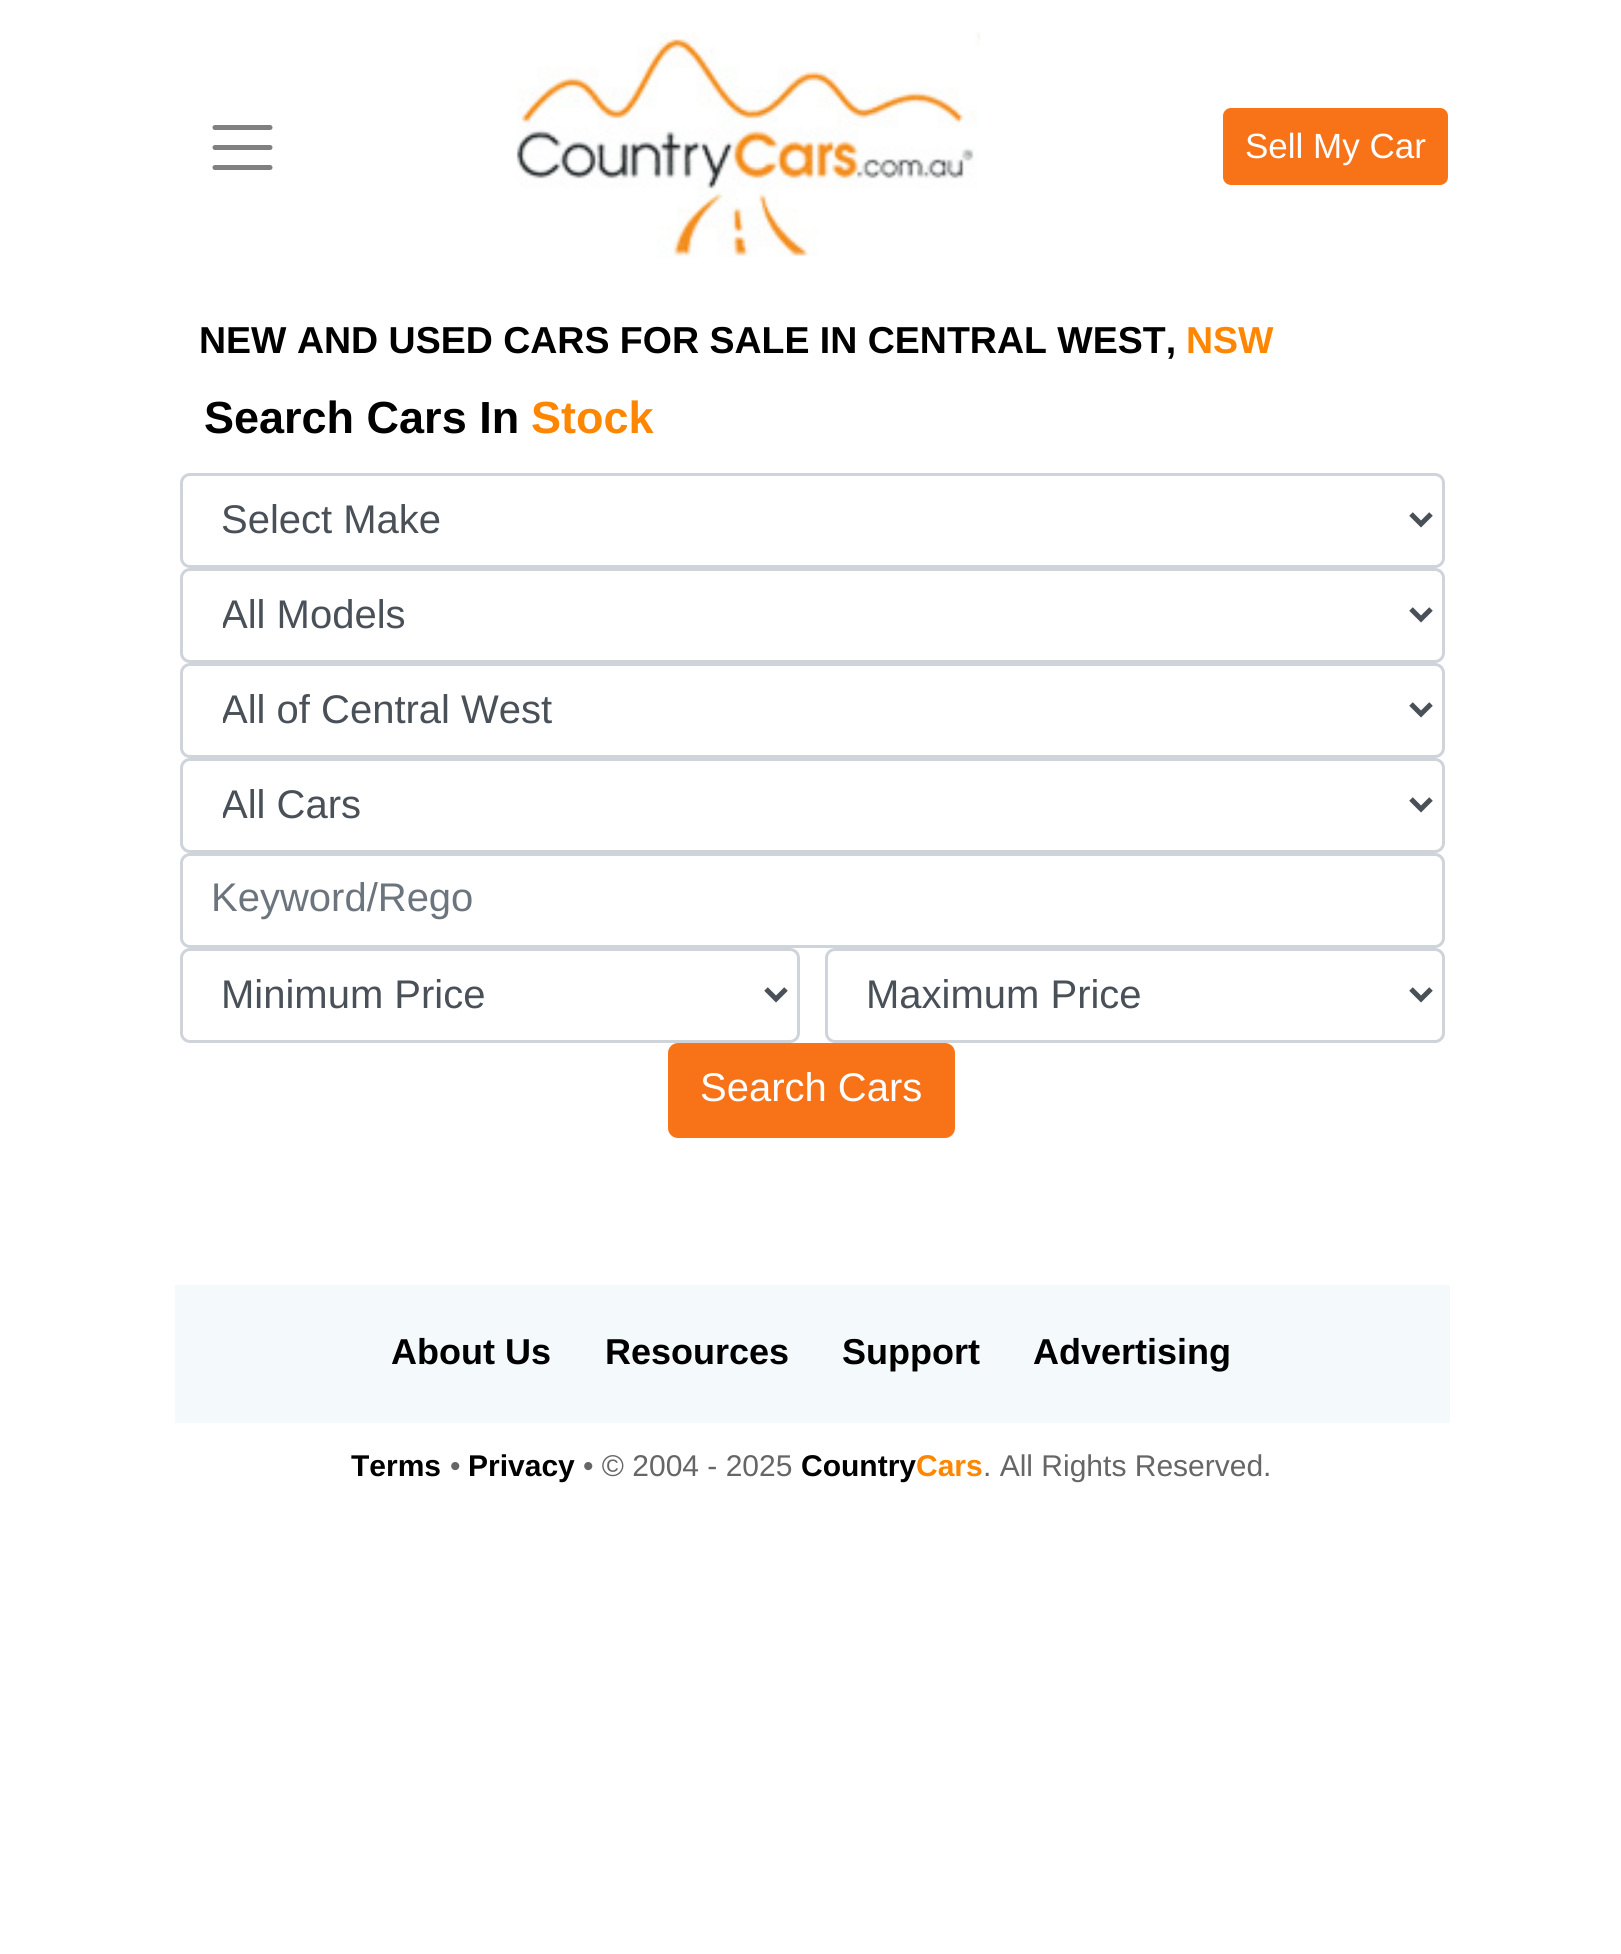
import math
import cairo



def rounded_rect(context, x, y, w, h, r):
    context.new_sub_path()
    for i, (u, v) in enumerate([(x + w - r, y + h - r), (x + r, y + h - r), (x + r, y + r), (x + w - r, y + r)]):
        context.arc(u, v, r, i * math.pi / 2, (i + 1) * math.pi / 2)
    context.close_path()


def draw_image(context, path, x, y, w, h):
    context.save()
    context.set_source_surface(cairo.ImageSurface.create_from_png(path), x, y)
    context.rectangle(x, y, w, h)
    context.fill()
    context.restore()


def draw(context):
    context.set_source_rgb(1, 1, 1)
    context.paint()
    context.new_path()
    context.move_to(215, 127.5)
    context.line_to(270, 127.5)
    context.move_to(215, 147.5)
    context.line_to(270, 147.5)
    context.move_to(215, 167.5)
    context.line_to(270, 167.5)
    context.set_source_rgb(128 / 255, 128 / 255, 128 / 255)
    context.set_line_width(5)
    context.set_line_cap(cairo.LineCap.ROUND)
    context.stroke()
    draw_image(context, "images/1.png", 516, 32, 464, 226)
    context.set_source_rgb(248 / 255, 114 / 255, 23 / 255)
    rounded_rect(context, 1224.5, 109.5, 222, 74, 6.5)
    context.fill_preserve()
    context.set_source_rgb(248 / 255, 116 / 255, 23 / 255)
    context.set_line_width(3)
    context.set_line_cap(cairo.LineCap.BUTT)
    context.stroke()
    rounded_rect(context, 181.5, 474.5, 1262, 92, 8.5)
    context.set_source_rgb(206 / 255, 212 / 255, 218 / 255)
    context.stroke()
    context.new_path()
    context.move_to(1411, 514)
    context.line_to(1421, 524)
    context.line_to(1431, 514)
    context.set_source_rgb(73 / 255, 80 / 255, 87 / 255)
    context.set_line_width(5)
    context.stroke()
    rounded_rect(context, 181.5, 569.5, 1262, 92, 8.5)
    context.set_source_rgb(206 / 255, 212 / 255, 218 / 255)
    context.set_line_width(3)
    context.stroke()
    context.new_path()
    context.move_to(1411, 609)
    context.line_to(1421, 619)
    context.line_to(1431, 609)
    context.set_source_rgb(73 / 255, 80 / 255, 87 / 255)
    context.set_line_width(5)
    context.stroke()
    rounded_rect(context, 181.5, 664.5, 1262, 92, 8.5)
    context.set_source_rgb(206 / 255, 212 / 255, 218 / 255)
    context.set_line_width(3)
    context.stroke()
    context.new_path()
    context.move_to(1411, 704)
    context.line_to(1421, 714)
    context.line_to(1431, 704)
    context.set_source_rgb(73 / 255, 80 / 255, 87 / 255)
    context.set_line_width(5)
    context.stroke()
    rounded_rect(context, 181.5, 759.5, 1262, 92, 8.5)
    context.set_source_rgb(206 / 255, 212 / 255, 218 / 255)
    context.set_line_width(3)
    context.stroke()
    context.new_path()
    context.move_to(1411, 799)
    context.line_to(1421, 809)
    context.line_to(1431, 799)
    context.set_source_rgb(73 / 255, 80 / 255, 87 / 255)
    context.set_line_width(5)
    context.stroke()
    rounded_rect(context, 181.5, 854.5, 1262, 92, 8.5)
    context.set_source_rgb(206 / 255, 212 / 255, 218 / 255)
    context.set_line_width(3)
    context.stroke()
    rounded_rect(context, 181.5, 949.5, 617, 92, 8.5)
    context.stroke()
    context.new_path()
    context.move_to(766, 989)
    context.line_to(776, 999)
    context.line_to(786, 989)
    context.set_source_rgb(73 / 255, 80 / 255, 87 / 255)
    context.set_line_width(5)
    context.stroke()
    rounded_rect(context, 826.5, 949.5, 617, 92, 8.5)
    context.set_source_rgb(206 / 255, 212 / 255, 218 / 255)
    context.set_line_width(3)
    context.stroke()
    context.new_path()
    context.move_to(1411, 989)
    context.line_to(1421, 999)
    context.line_to(1431, 989)
    context.set_source_rgb(73 / 255, 80 / 255, 87 / 255)
    context.set_line_width(5)
    context.stroke()
    context.set_source_rgb(248 / 255, 114 / 255, 23 / 255)
    rounded_rect(context, 669.5, 1044.5, 284, 92, 8.5)
    context.fill_preserve()
    context.set_source_rgb(248 / 255, 116 / 255, 23 / 255)
    context.set_line_width(3)
    context.stroke()
    context.set_source_rgb(244 / 255, 249 / 255, 252 / 255)
    context.rectangle(175, 1285, 1275, 138)
    context.fill()
    context.select_font_face("Liberation Sans")
    context.set_font_size(35)
    context.set_source_rgb(1, 1, 1)
    context.move_to(1245, 158)
    context.show_text("Sell My Car")
    context.select_font_face("Liberation Sans", cairo.FontSlant.NORMAL, cairo.FontWeight.BOLD)
    context.set_font_size(37.5)
    context.set_source_rgb(0, 0, 0)
    context.move_to(199, 353)
    context.show_text("NEW AND USED CARS FOR SALE IN CENTRAL WEST,")
    context.set_source_rgb(1, 134 / 255, 0)
    context.move_to(1186, 353)
    context.show_text("NSW")
    context.set_font_size(45)
    context.set_source_rgb(0, 0, 0)
    context.move_to(204, 433)
    context.show_text("Search Cars In")
    context.set_source_rgb(1, 134 / 255, 0)
    context.move_to(531, 433)
    context.show_text("Stock")
    context.select_font_face("Liberation Sans")
    context.set_font_size(40)
    context.set_source_rgb(73 / 255, 80 / 255, 87 / 255)
    context.move_to(221, 533)
    context.show_text("Select Make")
    context.save()
    context.rectangle(223, 590, 1150, 48)
    context.clip()
    context.move_to(221, 628)
    context.show_text("All Models")
    context.restore()
    context.save()
    context.rectangle(223, 685, 1150, 48)
    context.clip()
    context.move_to(221, 723)
    context.show_text("All of Central West")
    context.restore()
    context.save()
    context.rectangle(223, 780, 1150, 48)
    context.clip()
    context.move_to(221, 818)
    context.show_text("All Cars")
    context.restore()
    context.set_source_rgb(108 / 255, 117 / 255, 125 / 255)
    context.move_to(211, 911)
    context.show_text("Keyword/Rego")
    context.set_source_rgb(73 / 255, 80 / 255, 87 / 255)
    context.move_to(221, 1008)
    context.show_text("Minimum Price")
    context.move_to(866, 1008)
    context.show_text("Maximum Price")
    context.set_source_rgb(1, 1, 1)
    context.move_to(700, 1101)
    context.show_text("Search Cars")
    context.select_font_face("Liberation Sans", cairo.FontSlant.NORMAL, cairo.FontWeight.BOLD)
    context.set_font_size(36)
    context.set_source_rgb(0, 0, 0)
    context.move_to(391, 1364)
    context.show_text("About Us")
    context.move_to(605, 1364)
    context.show_text("Resources")
    context.move_to(842, 1364)
    context.show_text("Support")
    context.move_to(1033, 1364)
    context.show_text("Advertising")
    context.set_font_size(30)
    context.move_to(351, 1476)
    context.show_text("Terms")
    context.select_font_face("Liberation Sans")
    context.set_source_rgb(102 / 255, 102 / 255, 102 / 255)
    context.move_to(450, 1476)
    context.show_text("•")
    context.select_font_face("Liberation Sans", cairo.FontSlant.NORMAL, cairo.FontWeight.BOLD)
    context.set_source_rgb(0, 0, 0)
    context.move_to(468, 1476)
    context.show_text("Privacy")
    context.select_font_face("Liberation Sans")
    context.set_source_rgb(102 / 255, 102 / 255, 102 / 255)
    context.move_to(583, 1476)
    context.show_text("• © 2004 - 2025")
    context.select_font_face("Liberation Sans", cairo.FontSlant.NORMAL, cairo.FontWeight.BOLD)
    context.set_source_rgb(0, 0, 0)
    context.move_to(801, 1476)
    context.show_text("Country")
    context.set_source_rgb(1, 134 / 255, 0)
    context.move_to(916, 1476)
    context.show_text("Cars")
    context.select_font_face("Liberation Sans")
    context.set_source_rgb(102 / 255, 102 / 255, 102 / 255)
    context.move_to(983, 1476)
    context.show_text(". All Rights Reserved.")


surface = cairo.ImageSurface(cairo.Format.RGB24, 1621, 1954)
context = cairo.Context(surface)
options = cairo.FontOptions()
options.set_hint_metrics(cairo.HintMetrics.OFF)
options.set_hint_style(cairo.HintStyle.NONE)
context.set_font_options(options)
context.set_miter_limit(4)
draw(context)
surface.write_to_png("out.png")
